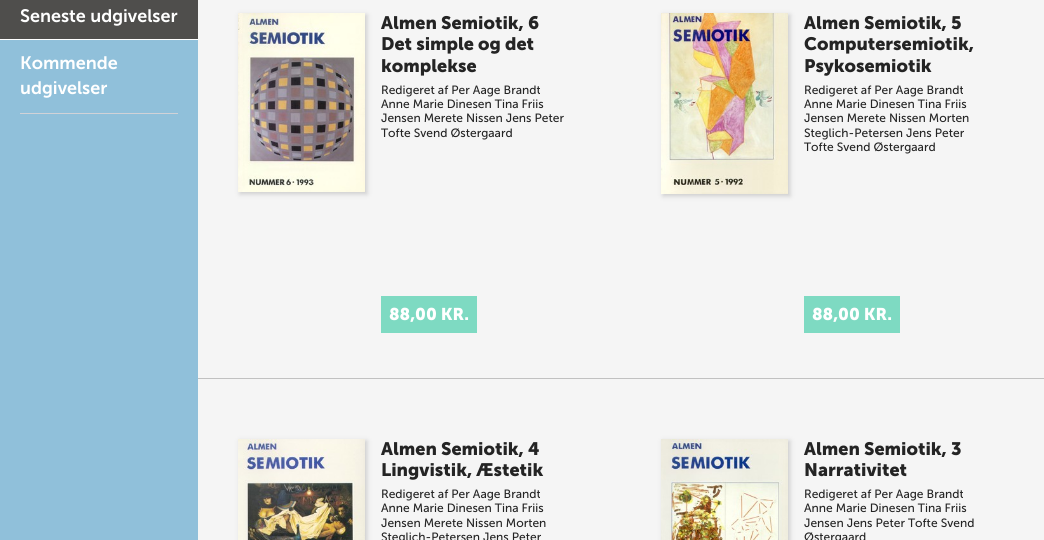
import math
import cairo



def rounded_rect(context, x, y, w, h, r):
    context.new_sub_path()
    for i, (u, v) in enumerate([(x + w - r, y + h - r), (x + r, y + h - r), (x + r, y + r), (x + w - r, y + r)]):
        context.arc(u, v, r, i * math.pi / 2, (i + 1) * math.pi / 2)
    context.close_path()


def draw_shadow(context, x, y, w, h, r, blur, alpha):
    context.push_group_with_content(cairo.Content.ALPHA)
    context.set_operator(cairo.Operator.SOURCE)
    for i in range(15, -16, -2):
        e = blur * i / 6
        if min(w, h) + 2 * e > 0:
            context.set_source_rgba(0, 0, 0, alpha * math.erfc((i - 1) / 8.5) / 2)
            rounded_rect(context, x - e, y - e, w + 2 * e, h + 2 * e, max(0, min(r + e + blur * .6, min(w, h) / 2 + e)))
            context.fill()
    context.mask(context.pop_group())


def draw_image(context, path, x, y, w, h):
    context.save()
    context.set_source_surface(cairo.ImageSurface.create_from_png(path), x, y)
    context.rectangle(x, y, w, h)
    context.fill()
    context.restore()


def draw(context):
    context.set_source_rgb(144 / 255, 192 / 255, 218 / 255)
    context.paint()
    context.set_source_rgb(79 / 255, 78 / 255, 76 / 255)
    context.rectangle(0, 0, 198, 39)
    context.fill()
    context.set_source_rgb(1, 1, 1)
    context.rectangle(0, 39, 198, 1)
    context.fill()
    context.set_source_rgb(209 / 255, 210 / 255, 215 / 255)
    context.rectangle(20, 113, 158, 1)
    context.fill()
    context.set_source_rgb(245 / 255, 245 / 255, 245 / 255)
    context.rectangle(198, 0, 846, 540)
    context.fill()
    context.set_source_rgb(204 / 255, 204 / 255, 204 / 255)
    draw_shadow(context, 240, 15, 127, 179, 0, 2.5, 1)
    draw_image(context, "images/1.png", 238, 13, 127, 179)
    context.set_source_rgb(126 / 255, 218 / 255, 194 / 255)
    context.rectangle(381, 296, 96, 37)
    context.fill()
    context.set_source_rgb(204 / 255, 204 / 255, 204 / 255)
    draw_shadow(context, 663, 15, 127, 181, 0, 2.5, 1)
    draw_image(context, "images/2.png", 661, 13, 127, 181)
    context.set_source_rgb(126 / 255, 218 / 255, 194 / 255)
    context.rectangle(804, 296, 96, 37)
    context.fill()
    context.set_source_rgb(193 / 255, 193 / 255, 193 / 255)
    context.rectangle(198, 378, 846, 1)
    context.fill()
    context.set_source_rgb(204 / 255, 204 / 255, 204 / 255)
    draw_shadow(context, 240, 441, 127, 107, 0, 2.5, 1)
    draw_image(context, "images/3.png", 238, 439, 127, 101)
    draw_shadow(context, 663, 441, 127, 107, 0, 2.5, 1)
    draw_image(context, "images/4.png", 661, 439, 127, 101)
    context.select_font_face("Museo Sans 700 SemiBold")
    context.set_font_size(18)
    context.set_source_rgb(1, 1, 1)
    context.move_to(20, 22)
    context.show_text("Seneste udgivelser")
    context.move_to(20, 69)
    context.show_text("Kommende")
    context.move_to(20, 94)
    context.show_text("udgivelser")
    context.select_font_face("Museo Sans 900", cairo.FontSlant.NORMAL, cairo.FontWeight.BOLD)
    context.set_source_rgb(36 / 255, 36 / 255, 36 / 255)
    context.move_to(381, 29)
    context.show_text("Almen Semiotik, 6")
    context.move_to(381, 50)
    context.show_text("Det simple og det")
    context.move_to(381, 72)
    context.show_text("komplekse")
    context.select_font_face("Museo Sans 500")
    context.set_font_size(12)
    context.move_to(381, 94)
    context.show_text("Redigeret af Per Aage Brandt")
    context.move_to(381, 108)
    context.show_text("Anne Marie Dinesen Tina Friis")
    context.move_to(381, 122)
    context.show_text("Jensen Merete Nissen Jens Peter")
    context.move_to(381, 137)
    context.show_text("Tofte Svend Østergaard")
    context.select_font_face("Museo Sans 900", cairo.FontSlant.NORMAL, cairo.FontWeight.BOLD)
    context.set_font_size(17)
    context.set_source_rgb(1, 1, 1)
    context.move_to(389, 320)
    context.show_text("88,00 KR.")
    context.set_font_size(18)
    context.set_source_rgb(36 / 255, 36 / 255, 36 / 255)
    context.move_to(804, 29)
    context.show_text("Almen Semiotik, 5")
    context.move_to(804, 50)
    context.show_text("Computersemiotik,")
    context.move_to(804, 72)
    context.show_text("Psykosemiotik")
    context.select_font_face("Museo Sans 500")
    context.set_font_size(12)
    context.move_to(804, 94)
    context.show_text("Redigeret af Per Aage Brandt")
    context.move_to(804, 108)
    context.show_text("Anne Marie Dinesen Tina Friis")
    context.move_to(804, 122)
    context.show_text("Jensen Merete Nissen Morten")
    context.move_to(804, 137)
    context.show_text("Steglich-Petersen Jens Peter")
    context.move_to(804, 151)
    context.show_text("Tofte Svend Østergaard")
    context.select_font_face("Museo Sans 900", cairo.FontSlant.NORMAL, cairo.FontWeight.BOLD)
    context.set_font_size(17)
    context.set_source_rgb(1, 1, 1)
    context.move_to(812, 320)
    context.show_text("88,00 KR.")
    context.set_font_size(18)
    context.set_source_rgb(36 / 255, 36 / 255, 36 / 255)
    context.move_to(381, 455)
    context.show_text("Almen Semiotik, 4")
    context.move_to(381, 476)
    context.show_text("Lingvistik, Æstetik")
    context.select_font_face("Museo Sans 500")
    context.set_font_size(12)
    context.move_to(381, 498)
    context.show_text("Redigeret af Per Aage Brandt")
    context.move_to(381, 512)
    context.show_text("Anne Marie Dinesen Tina Friis")
    context.move_to(381, 527)
    context.show_text("Jensen Merete Nissen Morten")
    context.move_to(381, 541)
    context.show_text("Steglich-Petersen Jens Peter")
    context.select_font_face("Museo Sans 900", cairo.FontSlant.NORMAL, cairo.FontWeight.BOLD)
    context.set_font_size(18)
    context.move_to(804, 455)
    context.show_text("Almen Semiotik, 3")
    context.move_to(804, 476)
    context.show_text("Narrativitet")
    context.select_font_face("Museo Sans 500")
    context.set_font_size(12)
    context.move_to(804, 498)
    context.show_text("Redigeret af Per Aage Brandt")
    context.move_to(804, 512)
    context.show_text("Anne Marie Dinesen Tina Friis")
    context.move_to(804, 527)
    context.show_text("Jensen Jens Peter Tofte Svend")
    context.move_to(804, 541)
    context.show_text("Østergaard")


surface = cairo.ImageSurface(cairo.Format.RGB24, 1044, 540)
context = cairo.Context(surface)
options = cairo.FontOptions()
options.set_hint_metrics(cairo.HintMetrics.OFF)
options.set_hint_style(cairo.HintStyle.NONE)
context.set_font_options(options)
context.set_miter_limit(4)
draw(context)
surface.write_to_png("out.png")
